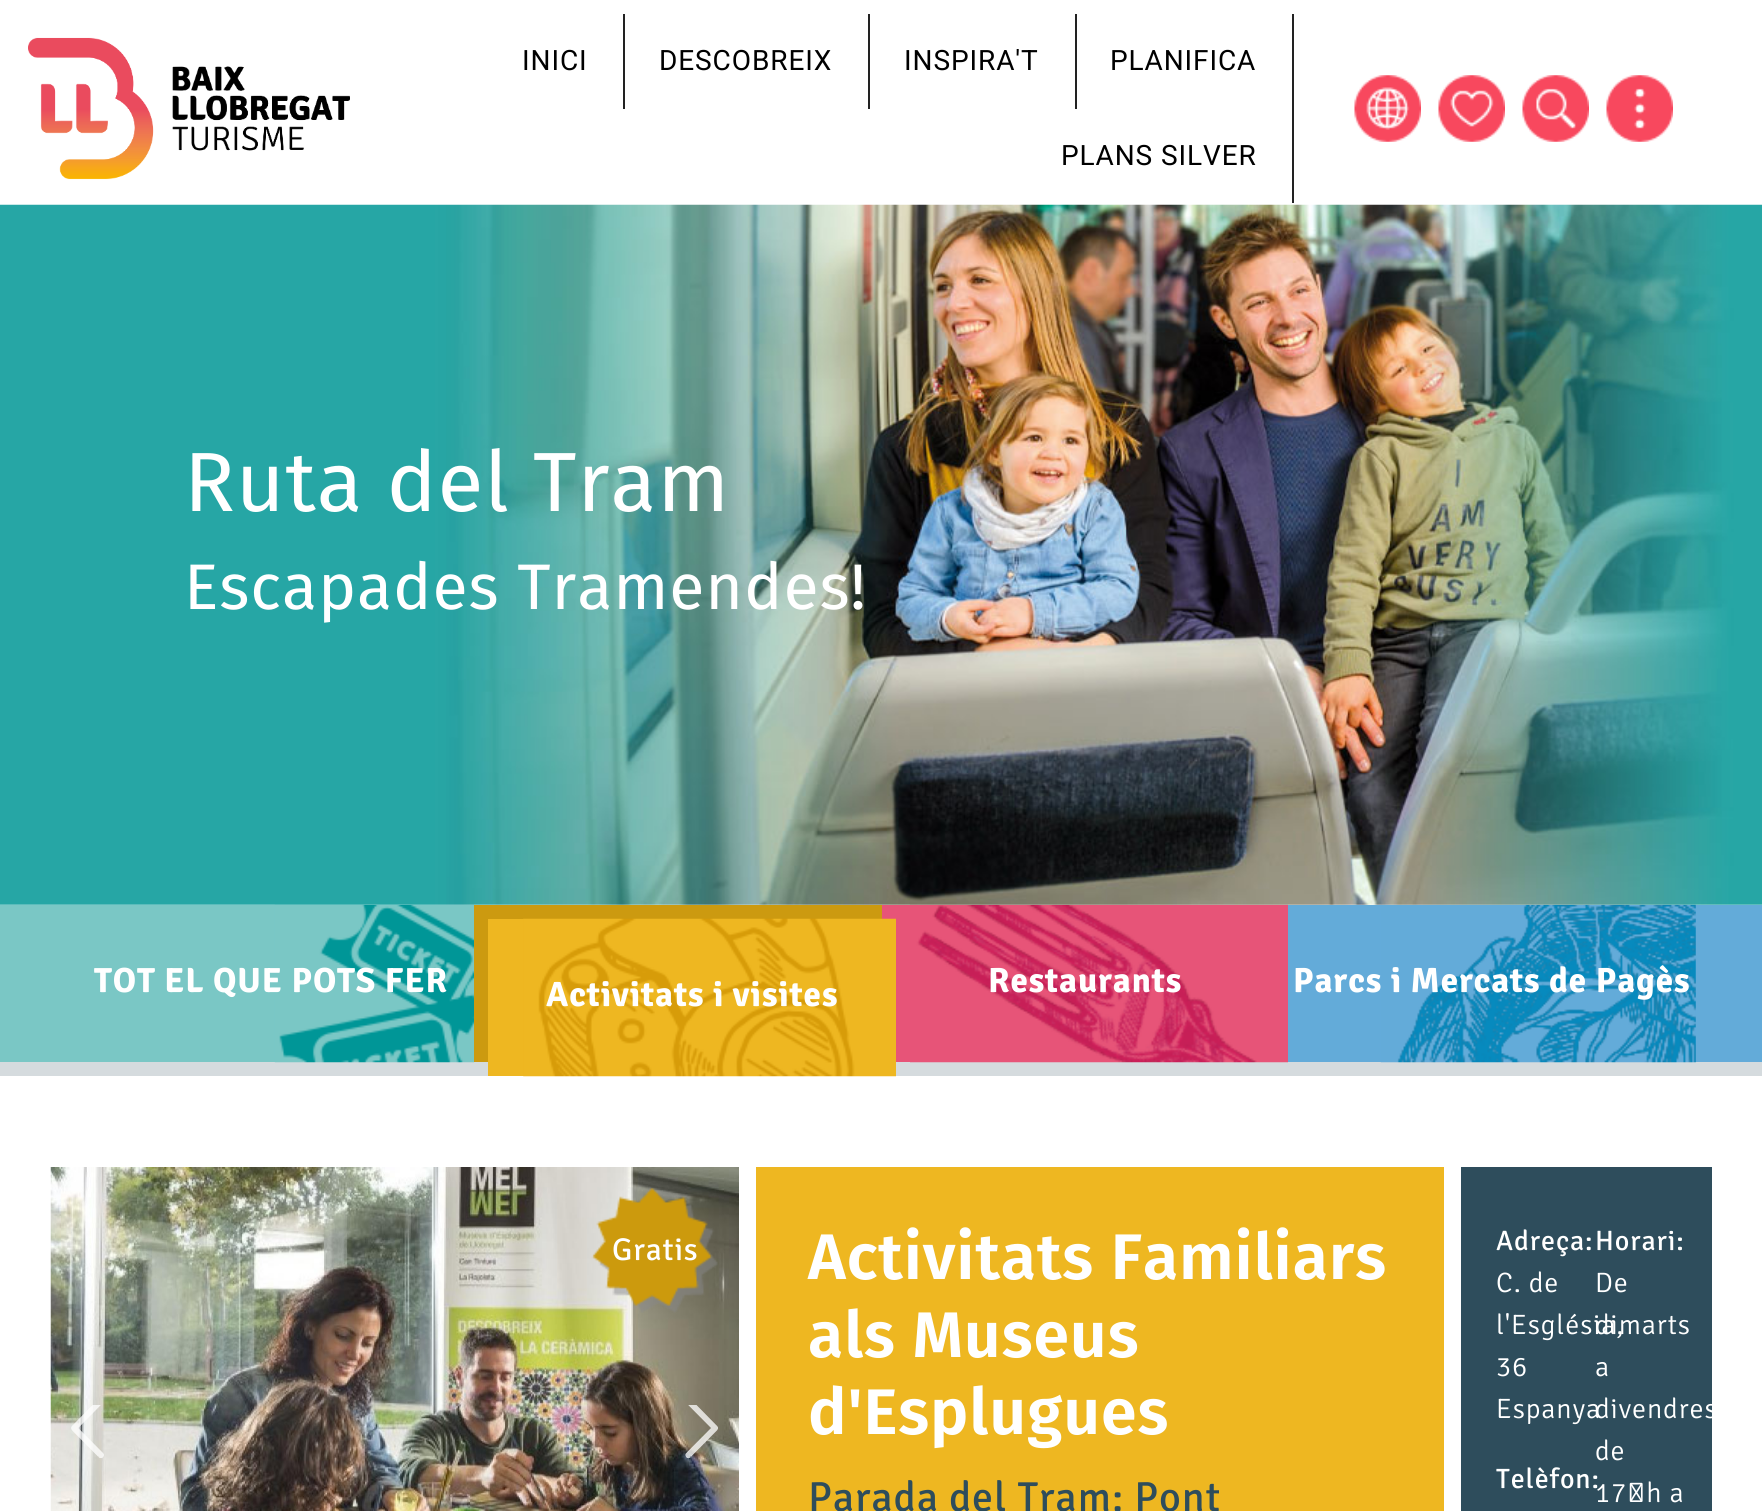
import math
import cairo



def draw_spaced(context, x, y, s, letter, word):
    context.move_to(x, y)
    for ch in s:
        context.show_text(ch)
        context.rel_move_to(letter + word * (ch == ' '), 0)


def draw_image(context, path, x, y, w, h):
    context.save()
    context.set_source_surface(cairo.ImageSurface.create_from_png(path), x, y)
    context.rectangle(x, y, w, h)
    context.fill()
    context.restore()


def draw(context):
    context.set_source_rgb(1, 1, 1)
    context.paint()
    draw_image(context, "images/1.png", 28, 37, 322, 143)
    context.set_source_rgb(34 / 255, 34 / 255, 34 / 255)
    context.rectangle(623, 14, 2, 95)
    context.fill()
    context.rectangle(868, 14, 2, 95)
    context.fill()
    context.rectangle(1075, 14, 2, 95)
    context.fill()
    context.rectangle(1292, 14, 2, 189)
    context.fill()
    draw_image(context, "images/2.png", 1354, 75, 67, 67)
    draw_image(context, "images/3.png", 1438, 75, 67, 67)
    draw_image(context, "images/4.png", 1522, 75, 67, 67)
    draw_image(context, "images/5.png", 1606, 75, 67, 67)
    context.set_source_rgb(213 / 255, 219 / 255, 222 / 255)
    context.rectangle(0, 1062, 1762, 14)
    context.fill()
    gradient = cairo.LinearGradient(0, 984, 1762, 984)
    gradient.add_color_stop_rgba(0, 122 / 255, 199 / 255, 197 / 255, 1)
    gradient.add_color_stop_rgba(0.5, 122 / 255, 199 / 255, 197 / 255, 1)
    gradient.add_color_stop_rgba(0.51, 99 / 255, 171 / 255, 217 / 255, 1)
    gradient.add_color_stop_rgba(1, 99 / 255, 171 / 255, 217 / 255, 1)
    context.set_source(gradient)
    context.rectangle(0, 905, 1762, 157)
    context.fill()
    draw_image(context, "images/7.png", 274, 904, 201, 159)
    draw_image(context, "images/9.png", 910, 904, 378, 159)
    draw_image(context, "images/10.png", 1380, 904, 316, 159)
    draw_image(context, "images/6.png", 0, 204, 1762, 701)
    context.set_source_rgb(204 / 255, 154 / 255, 16 / 255)
    context.new_path()
    context.move_to(474, 905)
    context.line_to(474, 1062)
    context.line_to(488, 1062)
    context.line_to(488, 919)
    context.line_to(882, 919)
    context.line_to(882, 905)
    context.close_path()
    context.fill()
    context.set_source_rgb(238 / 255, 183 / 255, 33 / 255)
    context.rectangle(488, 919, 36, 157)
    context.fill()
    context.set_source_rgb(231 / 255, 84 / 255, 120 / 255)
    context.rectangle(882, 905, 28, 157)
    context.fill()
    draw_image(context, "images/8.png", 523, 918, 373, 159)
    draw_image(context, "images/11.png", 50, 1167, 689, 344)
    draw_image(context, "images/12.png", 71, 1405, 33, 53)
    draw_image(context, "images/13.png", 685, 1405, 33, 54)
    draw_image(context, "images/14.png", 591, 1188, 127, 125)
    context.set_source_rgb(238 / 255, 183 / 255, 33 / 255)
    context.rectangle(756, 1167, 688, 344)
    context.fill()
    context.set_source_rgb(46 / 255, 77 / 255, 92 / 255)
    context.rectangle(1461, 1167, 251, 344)
    context.fill()
    context.select_font_face("Roboto")
    context.set_font_size(28)
    context.set_source_rgb(0, 0, 0)
    draw_spaced(context, 522, 70, "INICI", 0.9, 0)
    draw_spaced(context, 659, 70, "DESCOBREIX", 0.9, 0)
    draw_spaced(context, 904, 70, "INSPIRA'T", 0.9, 0)
    draw_spaced(context, 1110, 70, "PLANIFICA", 0.9, 0)
    draw_spaced(context, 1061, 165, "PLANS SILVER", 0.9, 0)
    context.select_font_face("Fira Sans")
    context.set_font_size(84)
    context.set_source_rgb(1, 1, 1)
    draw_spaced(context, 184, 511, "Ruta del Tram", 0.9, 0)
    context.set_font_size(64.4)
    draw_spaced(context, 184, 609, "Escapades Tramendes!", 0.9, 0)
    context.select_font_face("Signika", cairo.FontSlant.NORMAL, cairo.FontWeight.BOLD)
    context.set_font_size(35)
    draw_spaced(context, 94, 992, "TOT EL QUE POTS FER", 0.9, 0)
    draw_spaced(context, 546, 1006, "Activitats i visites", 0.9, 0)
    draw_spaced(context, 988, 992, "Restaurants", 0.9, 0)
    draw_spaced(context, 1293, 992, "Parcs i Mercats de Pagès", 0.9, 0)
    context.select_font_face("Signika")
    context.set_font_size(31.5)
    draw_spaced(context, 612, 1260, "Gratis", 0.9, 0)
    context.select_font_face("Fira Sans SemiBold")
    context.set_font_size(64.4)
    draw_spaced(context, 808, 1279, "Activitats Familiars", 0.9, 0)
    draw_spaced(context, 808, 1357, "als Museus", 0.9, 0)
    draw_spaced(context, 808, 1434, "d'Esplugues", 0.9, 0)
    context.select_font_face("Signika")
    context.set_font_size(42)
    context.set_source_rgb(46 / 255, 77 / 255, 92 / 255)
    draw_spaced(context, 808, 1511, "Parada del Tram: Pont", 0.9, 0)
    context.set_font_size(28)
    context.set_source_rgb(1, 1, 1)
    draw_spaced(context, 1496, 1250, "Adreça:", 0.9, 0)
    context.select_font_face("Signika Light")
    draw_spaced(context, 1496, 1292, "C. de", 0.9, 0)
    draw_spaced(context, 1496, 1334, "l'Església,", 0.9, 0)
    draw_spaced(context, 1496, 1376, "36", 0.9, 0)
    draw_spaced(context, 1496, 1418, "Espanya", 0.9, 0)
    context.select_font_face("Signika")
    draw_spaced(context, 1496, 1488, "Telèfon:", 0.9, 0)
    draw_spaced(context, 1595, 1250, "Horari:", 0.9, 0)
    context.select_font_face("Signika Light")
    draw_spaced(context, 1595, 1292, "De", 0.9, 0)
    draw_spaced(context, 1595, 1334, "dimarts", 0.9, 0)
    draw_spaced(context, 1595, 1376, "a", 0.9, 0)
    draw_spaced(context, 1595, 1418, "divendres", 0.9, 0)
    draw_spaced(context, 1595, 1460, "de", 0.9, 0)
    draw_spaced(context, 1595, 1502, "17 h a", 0.9, 0)


surface = cairo.ImageSurface(cairo.Format.RGB24, 1762, 1511)
context = cairo.Context(surface)
options = cairo.FontOptions()
options.set_hint_metrics(cairo.HintMetrics.OFF)
options.set_hint_style(cairo.HintStyle.NONE)
context.set_font_options(options)
context.set_miter_limit(4)
draw(context)
surface.write_to_png("out.png")
